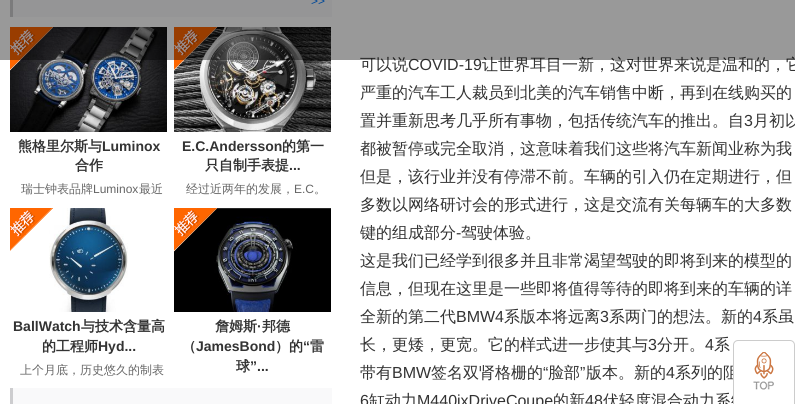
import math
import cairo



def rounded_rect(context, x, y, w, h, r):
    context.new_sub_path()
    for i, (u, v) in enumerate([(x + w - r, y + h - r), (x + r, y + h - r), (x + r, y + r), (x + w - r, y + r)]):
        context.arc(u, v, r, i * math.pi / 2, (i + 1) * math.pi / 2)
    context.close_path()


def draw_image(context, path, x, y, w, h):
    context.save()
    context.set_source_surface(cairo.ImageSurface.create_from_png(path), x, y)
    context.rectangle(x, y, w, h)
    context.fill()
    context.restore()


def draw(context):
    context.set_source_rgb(1, 1, 1)
    context.paint()
    context.set_source_rgb(249 / 255, 249 / 255, 250 / 255)
    context.rectangle(13, 0, 319, 17)
    context.fill()
    context.set_source_rgb(205 / 255, 205 / 255, 207 / 255)
    context.rectangle(10, 0, 3, 17)
    context.fill()
    draw_image(context, "images/1.png", 10, 27, 157, 105)
    draw_image(context, "images/2.png", 10, 27, 43, 44)
    draw_image(context, "images/3.png", 174, 27, 157, 105)
    draw_image(context, "images/4.png", 174, 27, 43, 44)
    draw_image(context, "images/6.png", 49, 208, 79, 104)
    draw_image(context, "images/5.png", 10, 208, 43, 43)
    draw_image(context, "images/7.png", 174, 208, 157, 104)
    draw_image(context, "images/8.png", 174, 208, 43, 44)
    context.set_source_rgb(249 / 255, 249 / 255, 250 / 255)
    context.rectangle(13, 388, 319, 16)
    context.fill()
    context.set_source_rgb(205 / 255, 205 / 255, 207 / 255)
    context.rectangle(10, 388, 3, 16)
    context.fill()
    context.select_font_face("Liberation Sans")
    context.set_font_size(12)
    context.set_source_rgb(0, 120 / 255, 1)
    context.move_to(311, 5)
    context.show_text(">>")
    context.select_font_face("WenQuanYi Zen Hei", cairo.FontSlant.NORMAL, cairo.FontWeight.BOLD)
    context.set_font_size(14)
    context.set_source_rgb(51 / 255, 51 / 255, 51 / 255)
    context.move_to(18, 151)
    context.show_text("熊格里尔斯与")
    context.select_font_face("Liberation Sans", cairo.FontSlant.NORMAL, cairo.FontWeight.BOLD)
    context.move_to(102, 151)
    context.show_text("Luminox")
    context.select_font_face("WenQuanYi Zen Hei", cairo.FontSlant.NORMAL, cairo.FontWeight.BOLD)
    context.move_to(75, 170)
    context.show_text("合作")
    context.select_font_face("WenQuanYi Zen Hei Medium")
    context.set_font_size(12)
    context.set_source_rgb(102 / 255, 102 / 255, 102 / 255)
    context.move_to(21, 193)
    context.show_text("瑞士钟表品牌")
    context.select_font_face("Liberation Sans")
    context.move_to(93, 193)
    context.show_text("Luminox")
    context.select_font_face("WenQuanYi Zen Hei Medium")
    context.move_to(139, 193)
    context.show_text("最近")
    context.select_font_face("Liberation Sans", cairo.FontSlant.NORMAL, cairo.FontWeight.BOLD)
    context.set_font_size(14)
    context.set_source_rgb(51 / 255, 51 / 255, 51 / 255)
    context.move_to(182, 151)
    context.show_text("E.C.Andersson")
    context.select_font_face("WenQuanYi Zen Hei", cairo.FontSlant.NORMAL, cairo.FontWeight.BOLD)
    context.move_to(282, 151)
    context.show_text("的第一")
    context.move_to(205, 170)
    context.show_text("只自制手表提")
    context.select_font_face("Liberation Sans", cairo.FontSlant.NORMAL, cairo.FontWeight.BOLD)
    context.move_to(289, 170)
    context.show_text("...")
    context.select_font_face("WenQuanYi Zen Hei Medium")
    context.set_font_size(12)
    context.set_source_rgb(102 / 255, 102 / 255, 102 / 255)
    context.move_to(186, 193)
    context.show_text("经过近两年的发展，")
    context.select_font_face("Liberation Sans")
    context.move_to(294, 193)
    context.show_text("E.C")
    context.select_font_face("WenQuanYi Zen Hei Medium")
    context.move_to(314, 193)
    context.show_text("。")
    context.select_font_face("Liberation Sans", cairo.FontSlant.NORMAL, cairo.FontWeight.BOLD)
    context.set_font_size(14)
    context.set_source_rgb(51 / 255, 51 / 255, 51 / 255)
    context.move_to(13, 331)
    context.show_text("BallWatch")
    context.select_font_face("WenQuanYi Zen Hei", cairo.FontSlant.NORMAL, cairo.FontWeight.BOLD)
    context.move_to(81, 331)
    context.show_text("与技术含量高")
    context.move_to(42, 351)
    context.show_text("的工程师")
    context.select_font_face("Liberation Sans", cairo.FontSlant.NORMAL, cairo.FontWeight.BOLD)
    context.move_to(98, 351)
    context.show_text("Hyd...")
    context.select_font_face("WenQuanYi Zen Hei Medium")
    context.set_font_size(12)
    context.set_source_rgb(102 / 255, 102 / 255, 102 / 255)
    context.move_to(20, 374)
    context.show_text("上个月底，历史悠久的制表")
    context.select_font_face("WenQuanYi Zen Hei", cairo.FontSlant.NORMAL, cairo.FontWeight.BOLD)
    context.set_font_size(14)
    context.set_source_rgb(51 / 255, 51 / 255, 51 / 255)
    context.move_to(215, 331)
    context.show_text("詹姆斯")
    context.select_font_face("Liberation Sans", cairo.FontSlant.NORMAL, cairo.FontWeight.BOLD)
    context.move_to(257, 331)
    context.show_text("·")
    context.select_font_face("WenQuanYi Zen Hei", cairo.FontSlant.NORMAL, cairo.FontWeight.BOLD)
    context.move_to(262, 331)
    context.show_text("邦德")
    context.move_to(182, 351)
    context.show_text("（")
    context.select_font_face("Liberation Sans", cairo.FontSlant.NORMAL, cairo.FontWeight.BOLD)
    context.move_to(196, 351)
    context.show_text("JamesBond")
    context.select_font_face("WenQuanYi Zen Hei", cairo.FontSlant.NORMAL, cairo.FontWeight.BOLD)
    context.move_to(275, 351)
    context.show_text("）的")
    context.select_font_face("Liberation Sans", cairo.FontSlant.NORMAL, cairo.FontWeight.BOLD)
    context.move_to(303, 351)
    context.show_text("“")
    context.select_font_face("WenQuanYi Zen Hei", cairo.FontSlant.NORMAL, cairo.FontWeight.BOLD)
    context.move_to(310, 351)
    context.show_text("雷")
    context.move_to(236, 371)
    context.show_text("球")
    context.select_font_face("Liberation Sans", cairo.FontSlant.NORMAL, cairo.FontWeight.BOLD)
    context.move_to(250, 371)
    context.show_text("”...")
    context.select_font_face("WenQuanYi Zen Hei Medium")
    context.set_font_size(16)
    context.move_to(360, 70)
    context.show_text("可以说")
    context.select_font_face("Liberation Sans")
    context.move_to(408, 70)
    context.show_text("COVID-19")
    context.select_font_face("WenQuanYi Zen Hei Medium")
    context.move_to(482, 70)
    context.show_text("让世界耳目一新，这对世界来说是温和的，它")
    context.set_source_rgba(0, 0, 0, 0.4)
    context.rectangle(0, 0, 795, 60)
    context.fill()
    context.set_source_rgb(51 / 255, 51 / 255, 51 / 255)
    context.move_to(360, 98)
    context.show_text("严重的汽车工人裁员到北美的汽车销售中断，再到在线购买的")
    context.move_to(360, 126)
    context.show_text("置并重新思考几乎所有事物，包括传统汽车的推出。自")
    context.select_font_face("Liberation Sans")
    context.move_to(744, 126)
    context.show_text("3")
    context.select_font_face("WenQuanYi Zen Hei Medium")
    context.move_to(753, 126)
    context.show_text("月初以")
    context.move_to(360, 154)
    context.show_text("都被暂停或完全取消，这意味着我们这些将汽车新闻业称为我")
    context.move_to(360, 182)
    context.show_text("但是，该行业并没有停滞不前。车辆的引入仍在定期进行，但")
    context.move_to(360, 210)
    context.show_text("多数以网络研讨会的形式进行，这是交流有关每辆车的大多数")
    context.move_to(360, 238)
    context.show_text("键的组成部分")
    context.select_font_face("Liberation Sans")
    context.move_to(456, 238)
    context.show_text("-")
    context.select_font_face("WenQuanYi Zen Hei Medium")
    context.move_to(461, 238)
    context.show_text("驾驶体验。")
    context.move_to(360, 266)
    context.show_text("这是我们已经学到很多并且非常渴望驾驶的即将到来的模型的")
    context.move_to(360, 294)
    context.show_text("信息，但现在这里是一些即将值得等待的即将到来的车辆的详")
    context.move_to(360, 322)
    context.show_text("全新的第二代")
    context.select_font_face("Liberation Sans")
    context.move_to(456, 322)
    context.show_text("BMW4")
    context.select_font_face("WenQuanYi Zen Hei Medium")
    context.move_to(504, 322)
    context.show_text("系版本将远离")
    context.select_font_face("Liberation Sans")
    context.move_to(600, 322)
    context.show_text("3")
    context.select_font_face("WenQuanYi Zen Hei Medium")
    context.move_to(609, 322)
    context.show_text("系两门的想法。新的")
    context.select_font_face("Liberation Sans")
    context.move_to(753, 322)
    context.show_text("4")
    context.select_font_face("WenQuanYi Zen Hei Medium")
    context.move_to(762, 322)
    context.show_text("系虽")
    context.move_to(360, 350)
    context.show_text("长，更矮，更宽。它的样式进一步使其与")
    context.select_font_face("Liberation Sans")
    context.move_to(648, 350)
    context.show_text("3")
    context.select_font_face("WenQuanYi Zen Hei Medium")
    context.move_to(657, 350)
    context.show_text("分开。")
    context.select_font_face("Liberation Sans")
    context.move_to(705, 350)
    context.show_text("4")
    context.select_font_face("WenQuanYi Zen Hei Medium")
    context.move_to(714, 350)
    context.show_text("系")
    context.move_to(360, 378)
    context.show_text("带有")
    context.select_font_face("Liberation Sans")
    context.move_to(392, 378)
    context.show_text("BMW")
    context.select_font_face("WenQuanYi Zen Hei Medium")
    context.move_to(431, 378)
    context.show_text("签名双肾格栅的")
    context.select_font_face("Liberation Sans")
    context.move_to(543, 378)
    context.show_text("“")
    context.select_font_face("WenQuanYi Zen Hei Medium")
    context.move_to(548, 378)
    context.show_text("脸部")
    context.select_font_face("Liberation Sans")
    context.move_to(580, 378)
    context.show_text("”")
    context.select_font_face("WenQuanYi Zen Hei Medium")
    context.move_to(586, 378)
    context.show_text("版本。新的")
    context.select_font_face("Liberation Sans")
    context.move_to(666, 378)
    context.show_text("4")
    context.select_font_face("WenQuanYi Zen Hei Medium")
    context.move_to(675, 378)
    context.show_text("系列的阻")
    context.select_font_face("Liberation Sans")
    context.move_to(360, 406)
    context.show_text("6")
    context.select_font_face("WenQuanYi Zen Hei Medium")
    context.move_to(369, 406)
    context.show_text("缸动力")
    context.select_font_face("Liberation Sans")
    context.move_to(417, 406)
    context.show_text("M440ixDriveCoupe")
    context.select_font_face("WenQuanYi Zen Hei Medium")
    context.move_to(553, 406)
    context.show_text("的新")
    context.select_font_face("Liberation Sans")
    context.move_to(585, 406)
    context.show_text("48")
    context.select_font_face("WenQuanYi Zen Hei Medium")
    context.move_to(603, 406)
    context.show_text("伏轻度混合动力系统")
    context.set_source_rgb(1, 1, 1)
    rounded_rect(context, 733.5, 340.5, 61, 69, 4.5)
    context.fill_preserve()
    context.set_source_rgb(204 / 255, 204 / 255, 204 / 255)
    context.set_line_width(1)
    context.stroke()
    draw_image(context, "images/9.png", 753, 352, 21, 38)


surface = cairo.ImageSurface(cairo.Format.RGB24, 795, 404)
context = cairo.Context(surface)
options = cairo.FontOptions()
options.set_hint_metrics(cairo.HintMetrics.OFF)
options.set_hint_style(cairo.HintStyle.NONE)
context.set_font_options(options)
context.set_miter_limit(4)
draw(context)
surface.write_to_png("out.png")
